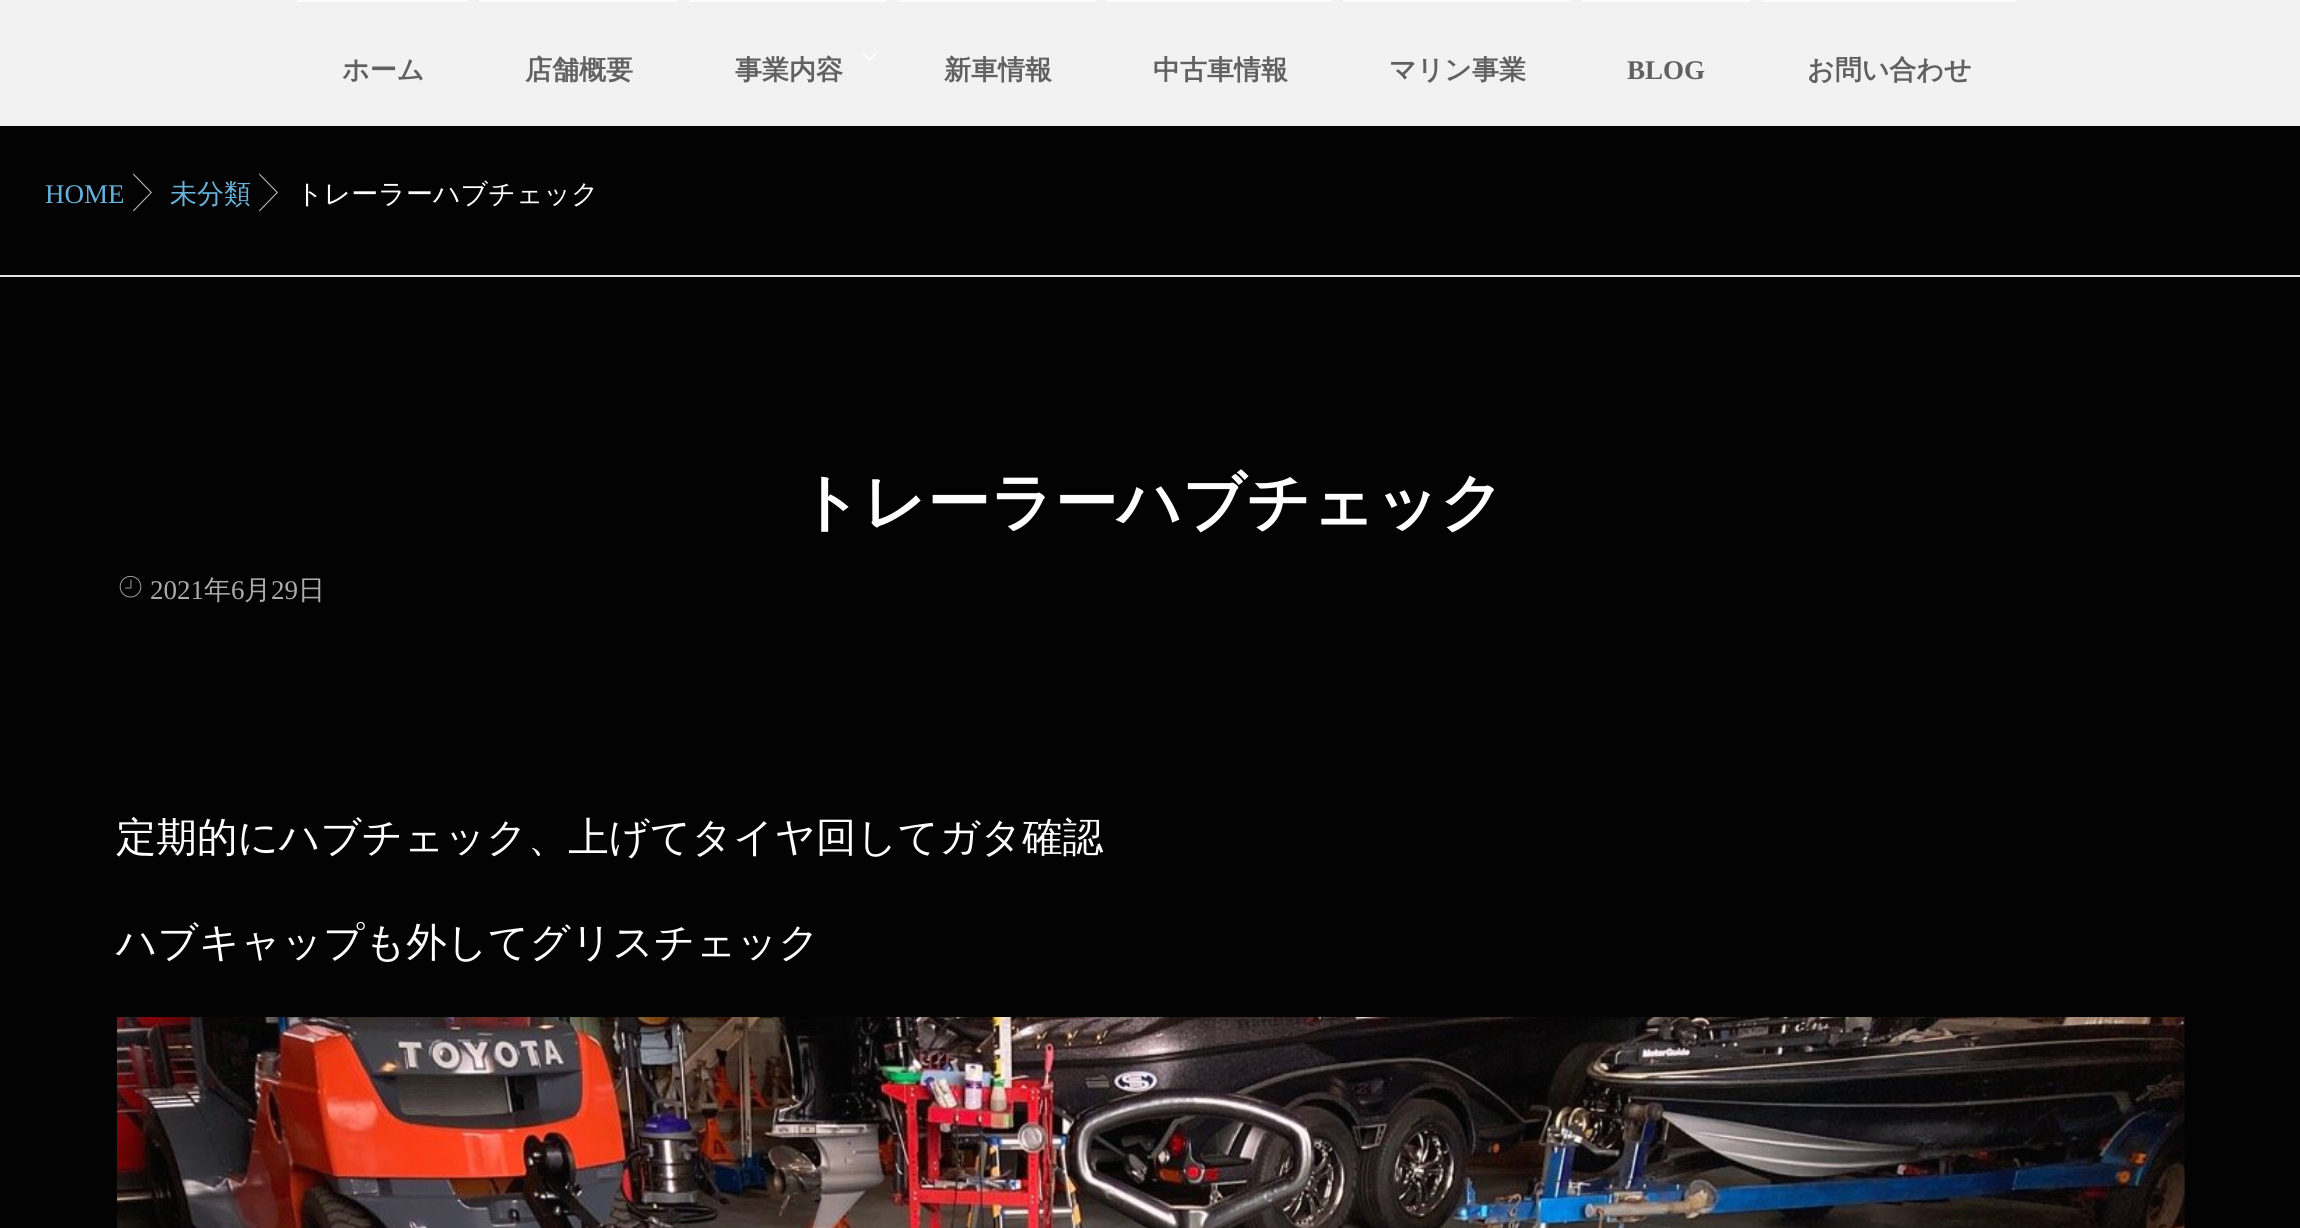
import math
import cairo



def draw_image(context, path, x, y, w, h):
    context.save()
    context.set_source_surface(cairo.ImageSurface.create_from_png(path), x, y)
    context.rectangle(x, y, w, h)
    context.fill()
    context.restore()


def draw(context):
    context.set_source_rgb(3 / 255, 3 / 255, 3 / 255)
    context.paint()
    context.set_source_rgb(242 / 255, 242 / 255, 242 / 255)
    context.rectangle(0, 0, 2300, 126)
    context.fill()
    context.set_source_rgb(252 / 255, 252 / 255, 252 / 255)
    context.rectangle(297, 0, 171, 2)
    context.fill()
    context.rectangle(479, 0, 198, 2)
    context.fill()
    context.rectangle(689, 0, 198, 2)
    context.fill()
    draw_image(context, "images/1.png", 863, 53, 14, 8)
    context.rectangle(898, 0, 198, 2)
    context.fill()
    context.rectangle(1107, 0, 225, 2)
    context.fill()
    context.rectangle(1343, 0, 228, 2)
    context.fill()
    context.rectangle(1582, 0, 169, 2)
    context.fill()
    context.rectangle(1762, 0, 254, 2)
    context.fill()
    context.set_source_rgb(229 / 255, 229 / 255, 229 / 255)
    context.rectangle(0, 275, 2300, 2)
    context.fill()
    context.set_source_rgb(189 / 255, 189 / 255, 189 / 255)
    context.new_path()
    context.move_to(133, 174.5)
    context.line_to(150.5, 192.5)
    context.line_to(133, 210.5)
    context.line_to(133.5, 211.5)
    context.line_to(152, 192.5)
    context.line_to(133.5, 173.5)
    context.close_path()
    context.fill()
    context.new_path()
    context.move_to(259, 174.5)
    context.line_to(276.5, 192.5)
    context.line_to(259, 210.5)
    context.line_to(259.5, 211.5)
    context.line_to(278, 192.5)
    context.line_to(259.5, 173.5)
    context.close_path()
    context.fill()
    draw_image(context, "images/2.png", 119, 575, 23, 23)
    draw_image(context, "images/3.png", 117, 1017, 2068, 211)
    context.select_font_face("WenQuanYi Zen Hei", cairo.FontSlant.NORMAL, cairo.FontWeight.BOLD)
    context.set_font_size(27)
    context.set_source_rgb(97 / 255, 97 / 255, 97 / 255)
    context.move_to(342, 79)
    context.show_text("ホーム")
    context.move_to(525, 79)
    context.show_text("店舗概要")
    context.move_to(735, 79)
    context.show_text("事業内容")
    context.move_to(944, 79)
    context.show_text("新車情報")
    context.move_to(1153, 79)
    context.show_text("中古車情報")
    context.move_to(1389, 79)
    context.show_text("マリン事業")
    context.select_font_face("Liberation Serif", cairo.FontSlant.NORMAL, cairo.FontWeight.BOLD)
    context.move_to(1627, 79)
    context.show_text("BLOG")
    context.select_font_face("WenQuanYi Zen Hei", cairo.FontSlant.NORMAL, cairo.FontWeight.BOLD)
    context.move_to(1807, 79)
    context.show_text("お問い合わせ")
    context.select_font_face("Liberation Serif")
    context.set_source_rgb(103 / 255, 178 / 255, 219 / 255)
    context.move_to(45, 203)
    context.show_text("HOME")
    context.select_font_face("WenQuanYi Zen Hei Medium")
    context.move_to(170, 203)
    context.show_text("未分類")
    context.set_source_rgb(1, 1, 1)
    context.move_to(296, 203)
    context.show_text("トレーラーハブチェック")
    context.select_font_face("WenQuanYi Zen Hei", cairo.FontSlant.NORMAL, cairo.FontWeight.BOLD)
    context.set_font_size(63)
    context.move_to(798, 524)
    context.show_text("トレーラーハブチェック")
    context.select_font_face("Liberation Serif")
    context.set_font_size(27)
    context.set_source_rgb(171 / 255, 171 / 255, 171 / 255)
    context.move_to(150, 599)
    context.show_text("2021")
    context.select_font_face("WenQuanYi Zen Hei Medium")
    context.move_to(204, 599)
    context.show_text("年")
    context.select_font_face("Liberation Serif")
    context.move_to(231, 599)
    context.show_text("6")
    context.select_font_face("WenQuanYi Zen Hei Medium")
    context.move_to(244, 599)
    context.show_text("月")
    context.select_font_face("Liberation Serif")
    context.move_to(271, 599)
    context.show_text("29")
    context.select_font_face("WenQuanYi Zen Hei Medium")
    context.move_to(298, 599)
    context.show_text("日")
    context.set_font_size(40.5)
    context.set_source_rgb(1, 1, 1)
    context.move_to(116, 851)
    context.show_text("定期的にハブチェック、上げてタイヤ回してガタ確認")
    context.move_to(116, 956)
    context.show_text("ハブキャップも外してグリスチェック")


surface = cairo.ImageSurface(cairo.Format.RGB24, 2300, 1228)
context = cairo.Context(surface)
options = cairo.FontOptions()
options.set_hint_metrics(cairo.HintMetrics.OFF)
options.set_hint_style(cairo.HintStyle.NONE)
context.set_font_options(options)
context.set_miter_limit(4)
draw(context)
surface.write_to_png("out.png")
